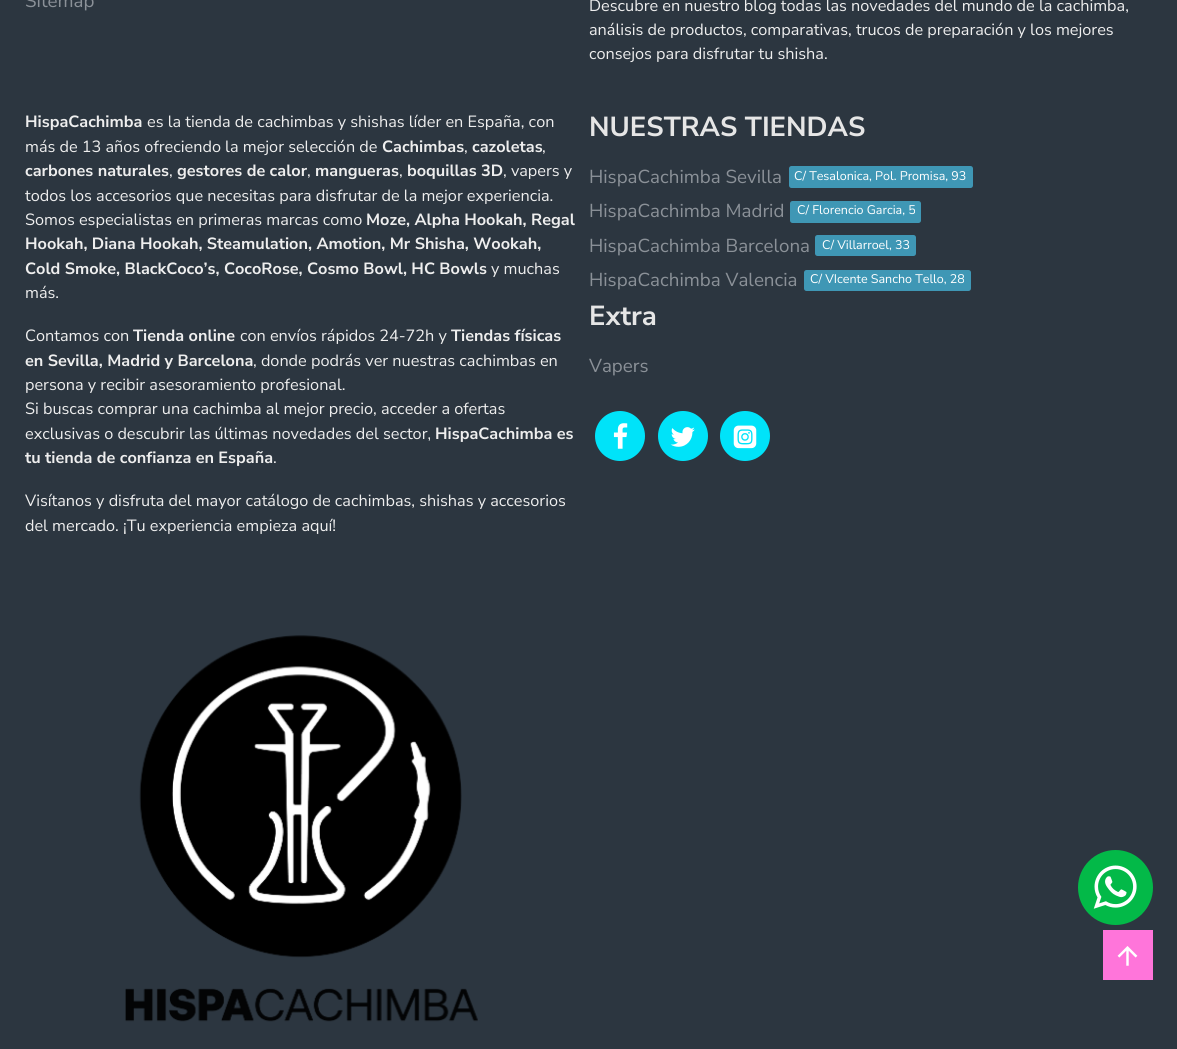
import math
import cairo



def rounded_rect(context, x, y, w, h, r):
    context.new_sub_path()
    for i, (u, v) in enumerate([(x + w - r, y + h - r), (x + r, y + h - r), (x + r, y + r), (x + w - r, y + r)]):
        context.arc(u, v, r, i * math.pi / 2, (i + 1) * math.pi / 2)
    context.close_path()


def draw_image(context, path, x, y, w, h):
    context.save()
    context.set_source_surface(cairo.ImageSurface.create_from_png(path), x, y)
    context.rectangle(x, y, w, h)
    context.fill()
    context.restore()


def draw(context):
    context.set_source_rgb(44 / 255, 54 / 255, 64 / 255)
    context.paint()
    draw_image(context, "images/1.png", 125, 635, 353, 387)
    context.set_source_rgb(63 / 255, 151 / 255, 181 / 255)
    rounded_rect(context, 789, 166, 184, 22, 2.5)
    context.fill()
    rounded_rect(context, 790, 201, 131, 22, 2.5)
    context.fill()
    rounded_rect(context, 815, 235, 101, 21, 2.5)
    context.fill()
    rounded_rect(context, 804, 270, 167, 21, 2.5)
    context.fill()
    context.set_source_rgb(0, 227 / 255, 249 / 255)
    context.arc(620, 436, 25, 0, 2 * math.pi)
    context.fill()
    draw_image(context, "images/2.png", 613, 423, 15, 26)
    context.arc(683, 436, 25, 0, 2 * math.pi)
    context.fill()
    draw_image(context, "images/3.png", 670, 427, 25, 20)
    context.arc(745, 436, 25, 0, 2 * math.pi)
    context.fill()
    draw_image(context, "images/4.png", 733, 425, 24, 24)
    context.set_source_rgb(3 / 255, 185 / 255, 72 / 255)
    context.arc(1115.5, 887.5, 37.5, 0, 2 * math.pi)
    context.fill()
    draw_image(context, "images/5.png", 1093, 865, 44, 44)
    context.set_source_rgb(1, 117 / 255, 218 / 255)
    context.rectangle(1103, 930, 50, 50)
    context.fill()
    draw_image(context, "images/6.png", 1117, 946, 21, 20)
    context.select_font_face("Nunito Sans")
    context.set_font_size(18.75)
    context.set_source_rgb(139 / 255, 145 / 255, 152 / 255)
    context.move_to(25, 7)
    context.show_text("Sitemap")
    context.set_font_size(16.25)
    context.set_source_rgb(238 / 255, 238 / 255, 238 / 255)
    context.move_to(589, 11)
    context.show_text("Descubre en nuestro blog todas las novedades del mundo de la cachimba,")
    context.move_to(589, 35)
    context.show_text("análisis de productos, comparativas, trucos de preparación y los mejores")
    context.move_to(589, 59)
    context.show_text("consejos para disfrutar tu shisha.")
    context.select_font_face("Nunito Sans", cairo.FontSlant.NORMAL, cairo.FontWeight.BOLD)
    context.move_to(25, 127)
    context.show_text("HispaCachimba")
    context.select_font_face("Nunito Sans")
    context.move_to(147, 127)
    context.show_text("es la tienda de cachimbas y shishas líder en España, con")
    context.move_to(25, 152)
    context.show_text("más de 13 años ofreciendo la mejor selección de")
    context.select_font_face("Nunito Sans", cairo.FontSlant.NORMAL, cairo.FontWeight.BOLD)
    context.move_to(382, 152)
    context.show_text("Cachimbas")
    context.select_font_face("Nunito Sans")
    context.move_to(464, 152)
    context.show_text(",")
    context.select_font_face("Nunito Sans", cairo.FontSlant.NORMAL, cairo.FontWeight.BOLD)
    context.move_to(472, 152)
    context.show_text("cazoletas")
    context.select_font_face("Nunito Sans")
    context.move_to(542, 152)
    context.show_text(",")
    context.select_font_face("Nunito Sans", cairo.FontSlant.NORMAL, cairo.FontWeight.BOLD)
    context.move_to(25, 176)
    context.show_text("carbones naturales")
    context.select_font_face("Nunito Sans")
    context.move_to(169, 176)
    context.show_text(",")
    context.select_font_face("Nunito Sans", cairo.FontSlant.NORMAL, cairo.FontWeight.BOLD)
    context.move_to(177, 176)
    context.show_text("gestores de calor")
    context.select_font_face("Nunito Sans")
    context.move_to(307, 176)
    context.show_text(",")
    context.select_font_face("Nunito Sans", cairo.FontSlant.NORMAL, cairo.FontWeight.BOLD)
    context.move_to(315, 176)
    context.show_text("mangueras")
    context.select_font_face("Nunito Sans")
    context.move_to(399, 176)
    context.show_text(",")
    context.select_font_face("Nunito Sans", cairo.FontSlant.NORMAL, cairo.FontWeight.BOLD)
    context.move_to(407, 176)
    context.show_text("boquillas 3D")
    context.select_font_face("Nunito Sans")
    context.move_to(503, 176)
    context.show_text(", vapers y")
    context.move_to(25, 201)
    context.show_text("todos los accesorios que necesitas para disfrutar de la mejor experiencia.")
    context.move_to(25, 225)
    context.show_text("Somos especialistas en primeras marcas como")
    context.select_font_face("Nunito Sans", cairo.FontSlant.NORMAL, cairo.FontWeight.BOLD)
    context.move_to(366, 225)
    context.show_text("Moze, Alpha Hookah, Regal")
    context.move_to(25, 249)
    context.show_text("Hookah, Diana Hookah, Steamulation, Amotion, Mr Shisha, Wookah,")
    context.move_to(25, 274)
    context.show_text("Cold Smoke, BlackCoco’s, CocoRose, Cosmo Bowl, HC Bowls")
    context.select_font_face("Nunito Sans")
    context.move_to(491, 274)
    context.show_text("y muchas")
    context.move_to(25, 298)
    context.show_text("más.")
    context.move_to(25, 341)
    context.show_text("Contamos con")
    context.select_font_face("Nunito Sans", cairo.FontSlant.NORMAL, cairo.FontWeight.BOLD)
    context.move_to(133, 341)
    context.show_text("Tienda online")
    context.select_font_face("Nunito Sans")
    context.move_to(240, 341)
    context.show_text("con envíos rápidos 24-72h y")
    context.select_font_face("Nunito Sans", cairo.FontSlant.NORMAL, cairo.FontWeight.BOLD)
    context.move_to(451, 341)
    context.show_text("Tiendas físicas")
    context.move_to(25, 366)
    context.show_text("en Sevilla, Madrid y Barcelona")
    context.select_font_face("Nunito Sans")
    context.move_to(253, 366)
    context.show_text(", donde podrás ver nuestras cachimbas en")
    context.move_to(25, 390)
    context.show_text("persona y recibir asesoramiento profesional.")
    context.move_to(25, 414)
    context.show_text("Si buscas comprar una cachimba al mejor precio, acceder a ofertas")
    context.move_to(25, 439)
    context.show_text("exclusivas o descubrir las últimas novedades del sector,")
    context.select_font_face("Nunito Sans", cairo.FontSlant.NORMAL, cairo.FontWeight.BOLD)
    context.move_to(435, 439)
    context.show_text("HispaCachimba es")
    context.move_to(25, 463)
    context.show_text("tu tienda de confianza en España")
    context.select_font_face("Nunito Sans")
    context.move_to(273, 463)
    context.show_text(".")
    context.move_to(25, 506)
    context.show_text("Visítanos y disfruta del mayor catálogo de cachimbas, shishas y accesorios")
    context.move_to(25, 531)
    context.show_text("del mercado. ¡Tu experiencia empieza aquí!")
    context.select_font_face("Nunito Sans", cairo.FontSlant.NORMAL, cairo.FontWeight.BOLD)
    context.set_font_size(27.5)
    context.set_source_rgb(230 / 255, 230 / 255, 230 / 255)
    context.move_to(589, 136)
    context.show_text("NUESTRAS TIENDAS")
    context.select_font_face("Nunito Sans")
    context.set_font_size(18.75)
    context.set_source_rgb(139 / 255, 145 / 255, 152 / 255)
    context.move_to(589, 183)
    context.show_text("HispaCachimba Sevilla")
    context.set_font_size(12.5)
    context.set_source_rgb(1, 1, 1)
    context.move_to(794, 180)
    context.show_text("C/ Tesalonica, Pol. Promisa, 93")
    context.set_font_size(18.75)
    context.set_source_rgb(139 / 255, 145 / 255, 152 / 255)
    context.move_to(589, 217)
    context.show_text("HispaCachimba Madrid")
    context.set_font_size(12.5)
    context.set_source_rgb(1, 1, 1)
    context.move_to(797, 214)
    context.show_text("C/ Florencio Garcia, 5")
    context.set_font_size(18.75)
    context.set_source_rgb(139 / 255, 145 / 255, 152 / 255)
    context.move_to(589, 252)
    context.show_text("HispaCachimba Barcelona")
    context.set_font_size(12.5)
    context.set_source_rgb(1, 1, 1)
    context.move_to(822, 249)
    context.show_text("C/ Villarroel, 33")
    context.set_font_size(18.75)
    context.set_source_rgb(139 / 255, 145 / 255, 152 / 255)
    context.move_to(589, 286)
    context.show_text("HispaCachimba Valencia")
    context.set_font_size(12.5)
    context.set_source_rgb(1, 1, 1)
    context.move_to(810, 283)
    context.show_text("C/ VIcente Sancho Tello, 28")
    context.select_font_face("Nunito Sans", cairo.FontSlant.NORMAL, cairo.FontWeight.BOLD)
    context.set_font_size(27.5)
    context.set_source_rgb(230 / 255, 230 / 255, 230 / 255)
    context.move_to(589, 325)
    context.show_text("Extra")
    context.select_font_face("Nunito Sans")
    context.set_font_size(18.75)
    context.set_source_rgb(139 / 255, 145 / 255, 152 / 255)
    context.move_to(589, 372)
    context.show_text("Vapers")


surface = cairo.ImageSurface(cairo.Format.RGB24, 1177, 1049)
context = cairo.Context(surface)
options = cairo.FontOptions()
options.set_hint_metrics(cairo.HintMetrics.OFF)
options.set_hint_style(cairo.HintStyle.NONE)
context.set_font_options(options)
context.set_miter_limit(4)
draw(context)
surface.write_to_png("out.png")
